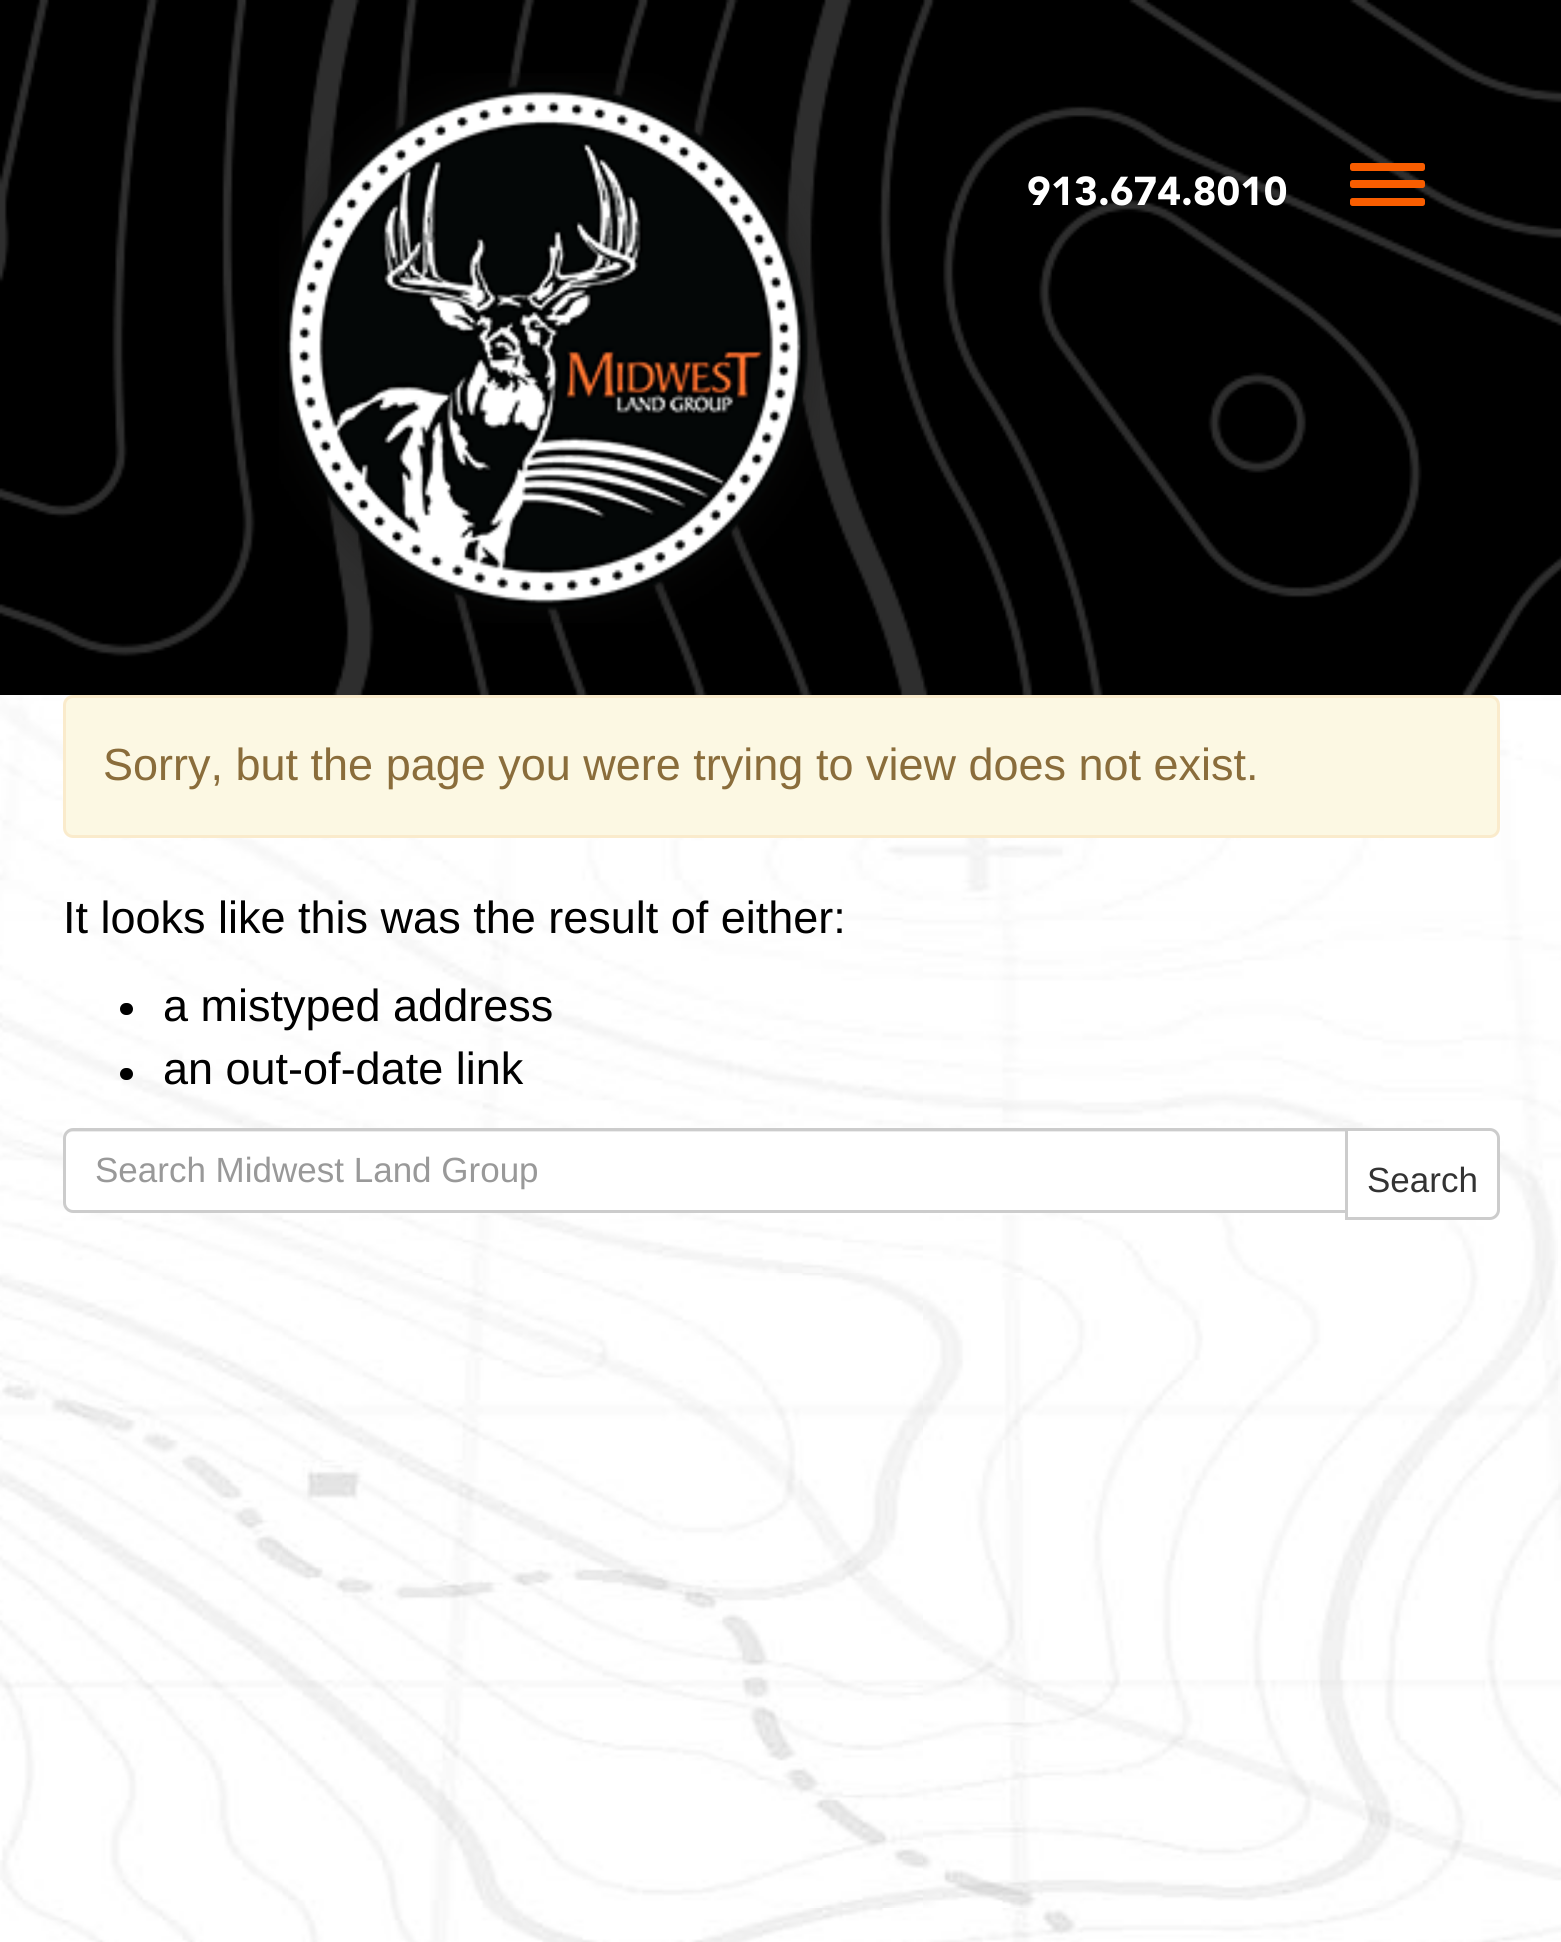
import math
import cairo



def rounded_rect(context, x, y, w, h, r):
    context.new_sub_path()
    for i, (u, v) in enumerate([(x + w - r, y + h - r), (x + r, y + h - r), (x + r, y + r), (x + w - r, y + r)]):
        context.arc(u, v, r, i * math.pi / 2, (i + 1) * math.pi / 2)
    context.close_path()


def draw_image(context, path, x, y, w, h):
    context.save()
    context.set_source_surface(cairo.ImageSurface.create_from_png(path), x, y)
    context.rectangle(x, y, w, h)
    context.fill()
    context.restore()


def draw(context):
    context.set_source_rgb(1, 1, 1)
    context.paint()
    draw_image(context, "images/1.png", 0, 0, 1561, 695)
    draw_image(context, "images/2.png", 279, 73, 541, 550)
    context.set_source_rgb(248 / 255, 93 / 255, 0)
    rounded_rect(context, 1350, 163, 75, 8, 2.5)
    context.fill()
    rounded_rect(context, 1350, 180, 75, 8, 2.5)
    context.fill()
    rounded_rect(context, 1350, 198, 75, 8, 2.5)
    context.fill()
    draw_image(context, "images/3.png", 0, 695, 1561, 1247)
    context.set_source_rgb(252 / 255, 248 / 255, 227 / 255)
    rounded_rect(context, 64.5, 696.5, 1434, 140, 8.5)
    context.fill_preserve()
    context.set_source_rgb(250 / 255, 235 / 255, 204 / 255)
    context.set_line_width(3)
    context.stroke()
    context.set_source_rgb(0, 0, 0)
    rounded_rect(context, 120, 1003, 13, 12, 6)
    context.fill()
    rounded_rect(context, 120, 1068, 13, 12, 6)
    context.fill()
    context.set_source_rgb(1, 1, 1)
    context.new_path()
    context.move_to(73, 1128)
    context.line_to(1348, 1128)
    context.line_to(1348, 1213)
    context.line_to(73, 1213)
    context.curve_to(67.5, 1213, 63, 1208.5, 63, 1203)
    context.line_to(63, 1138)
    context.curve_to(63, 1132.5, 67.5, 1128, 73, 1128)
    context.close_path()
    context.fill()
    context.set_source_rgb(236 / 255, 236 / 255, 236 / 255)
    context.new_path()
    context.move_to(72, 1132)
    context.line_to(1345, 1132)
    context.line_to(1345, 1130)
    context.line_to(73, 1130)
    context.curve_to(67, 1130, 65, 1135, 65, 1140)
    context.curve_to(65, 1136, 68, 1132, 72, 1132)
    context.close_path()
    context.fill()
    context.new_path()
    context.move_to(73, 1129.5)
    context.line_to(1346.5, 1129.5)
    context.line_to(1346.5, 1211.5)
    context.line_to(73, 1211.5)
    context.curve_to(68.5, 1211.5, 64.5, 1207.5, 64.5, 1203)
    context.line_to(64.5, 1138)
    context.curve_to(64.5, 1133.5, 68.5, 1129.5, 73, 1129.5)
    context.close_path()
    context.set_source_rgb(204 / 255, 204 / 255, 204 / 255)
    context.stroke()
    context.set_source_rgb(1, 1, 1)
    context.new_path()
    context.move_to(1346.5, 1129.5)
    context.line_to(1490, 1129.5)
    context.curve_to(1494.5, 1129.5, 1498.5, 1133.5, 1498.5, 1138)
    context.line_to(1498.5, 1210)
    context.curve_to(1498.5, 1214.5, 1494.5, 1218.5, 1490, 1218.5)
    context.line_to(1346.5, 1218.5)
    context.close_path()
    context.fill_preserve()
    context.set_source_rgb(204 / 255, 204 / 255, 204 / 255)
    context.stroke()
    context.select_font_face("Avenir Black")
    context.set_font_size(40)
    context.set_source_rgb(1, 1, 1)
    context.move_to(1027, 205)
    context.show_text("913.674.8010")
    context.select_font_face("Liberation Sans")
    context.set_font_size(45)
    context.set_source_rgb(138 / 255, 109 / 255, 59 / 255)
    context.move_to(103, 780)
    context.show_text("Sorry, but the page you were trying to view does not exist.")
    context.set_source_rgb(0, 0, 0)
    context.move_to(63, 933)
    context.show_text("It looks like this was the result of either:")
    context.move_to(163, 1021)
    context.show_text("a mistyped address")
    context.move_to(163, 1084)
    context.show_text("an out-of-date link")
    context.set_font_size(35)
    context.set_source_rgb(153 / 255, 153 / 255, 153 / 255)
    context.move_to(95, 1182)
    context.show_text("Search Midwest Land Group")
    context.set_source_rgb(51 / 255, 51 / 255, 51 / 255)
    context.move_to(1367, 1192)
    context.show_text("Search")


surface = cairo.ImageSurface(cairo.Format.RGB24, 1561, 1942)
context = cairo.Context(surface)
options = cairo.FontOptions()
options.set_hint_metrics(cairo.HintMetrics.OFF)
options.set_hint_style(cairo.HintStyle.NONE)
context.set_font_options(options)
context.set_miter_limit(4)
draw(context)
surface.write_to_png("out.png")
